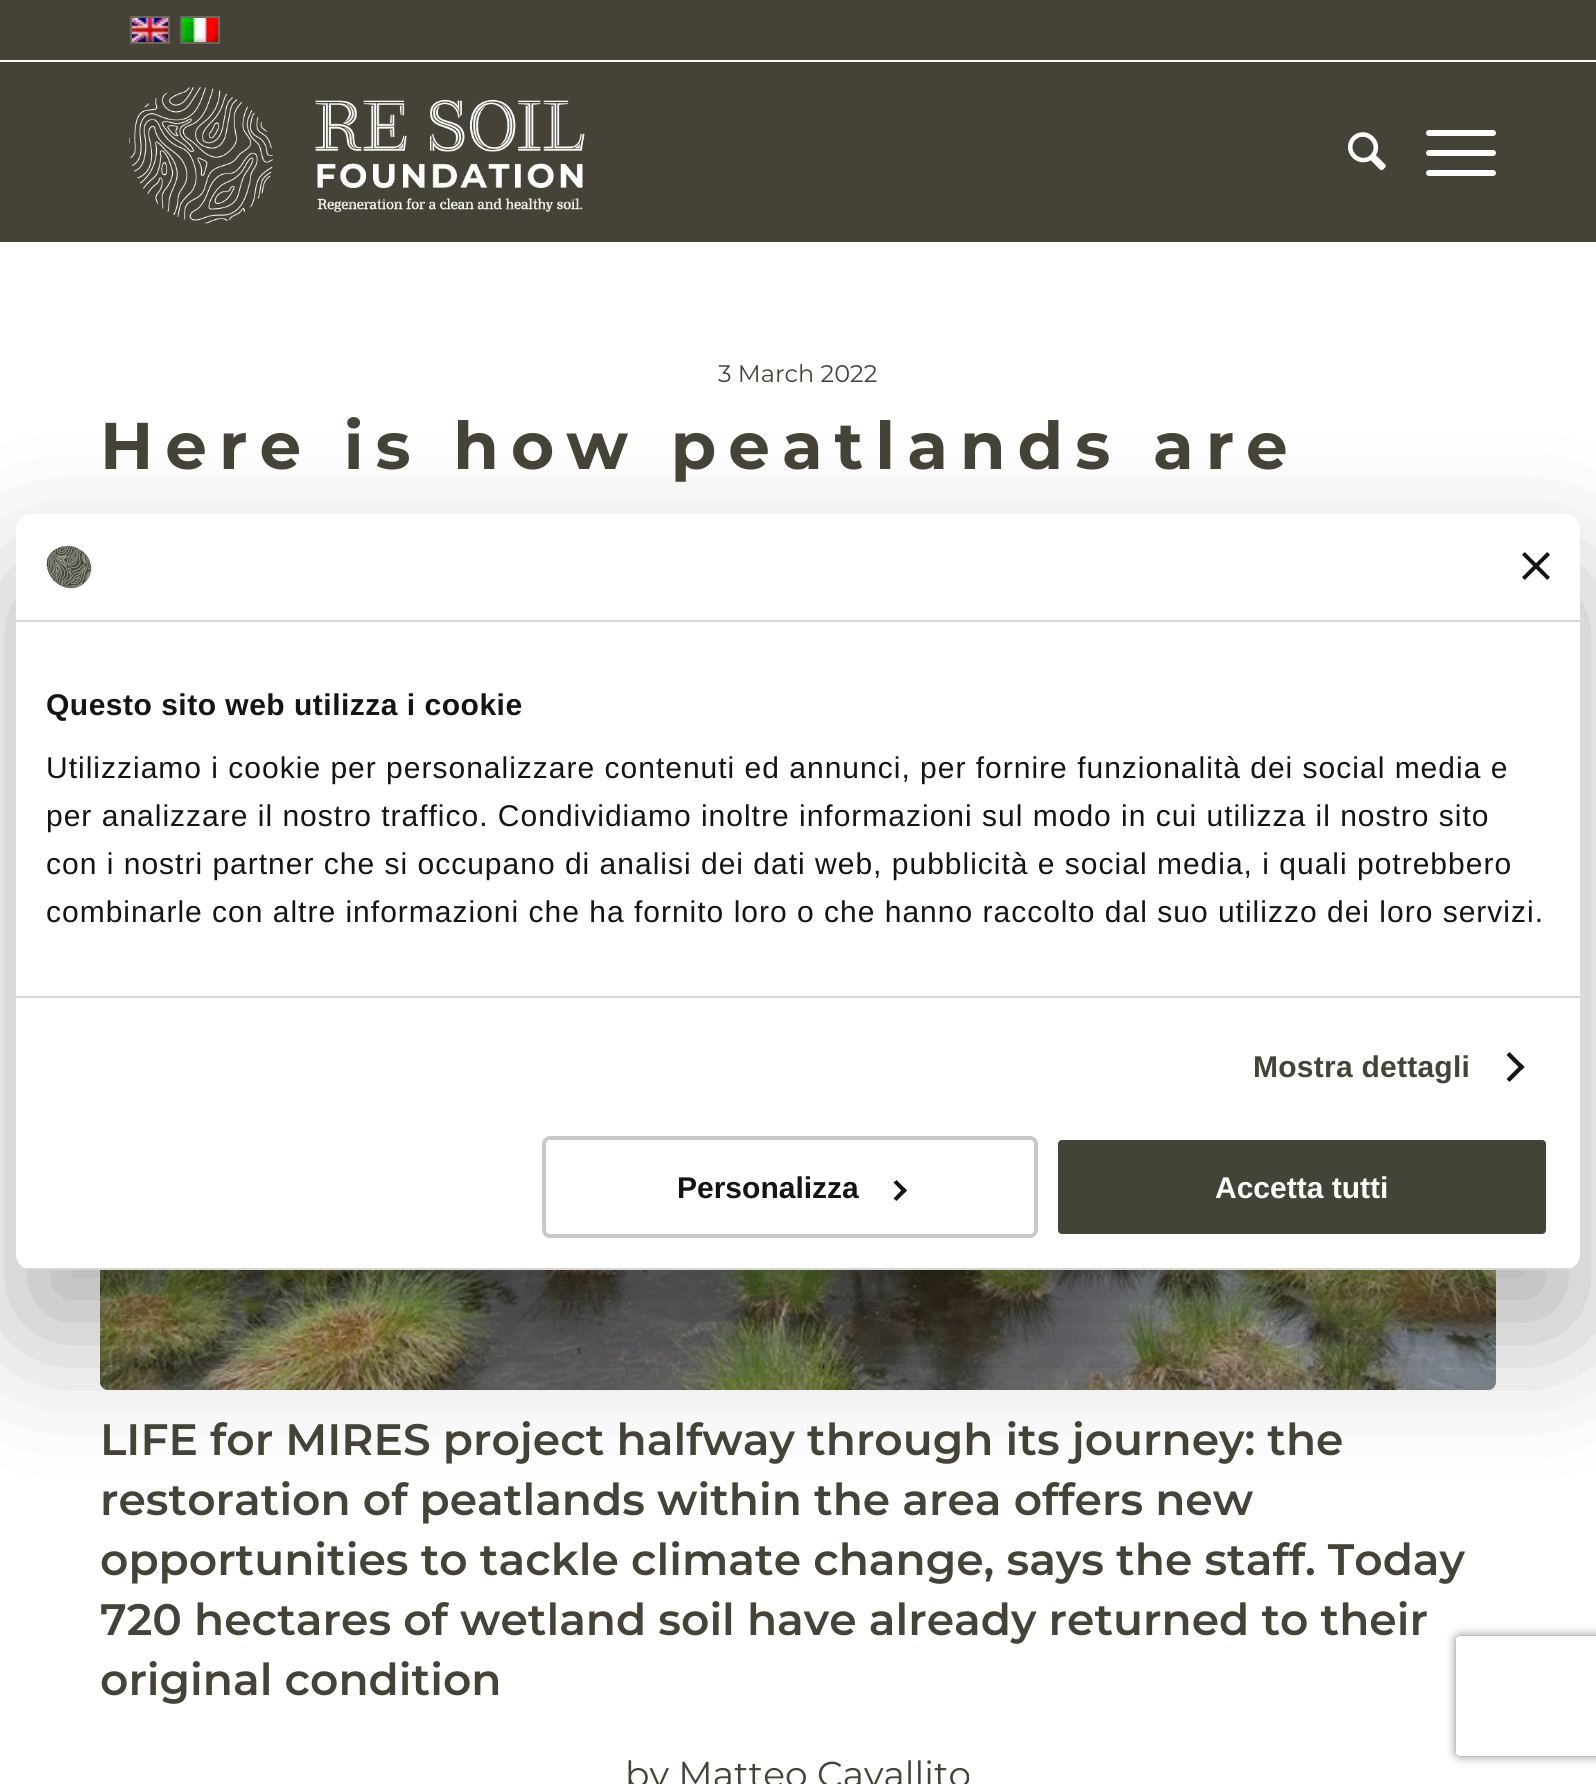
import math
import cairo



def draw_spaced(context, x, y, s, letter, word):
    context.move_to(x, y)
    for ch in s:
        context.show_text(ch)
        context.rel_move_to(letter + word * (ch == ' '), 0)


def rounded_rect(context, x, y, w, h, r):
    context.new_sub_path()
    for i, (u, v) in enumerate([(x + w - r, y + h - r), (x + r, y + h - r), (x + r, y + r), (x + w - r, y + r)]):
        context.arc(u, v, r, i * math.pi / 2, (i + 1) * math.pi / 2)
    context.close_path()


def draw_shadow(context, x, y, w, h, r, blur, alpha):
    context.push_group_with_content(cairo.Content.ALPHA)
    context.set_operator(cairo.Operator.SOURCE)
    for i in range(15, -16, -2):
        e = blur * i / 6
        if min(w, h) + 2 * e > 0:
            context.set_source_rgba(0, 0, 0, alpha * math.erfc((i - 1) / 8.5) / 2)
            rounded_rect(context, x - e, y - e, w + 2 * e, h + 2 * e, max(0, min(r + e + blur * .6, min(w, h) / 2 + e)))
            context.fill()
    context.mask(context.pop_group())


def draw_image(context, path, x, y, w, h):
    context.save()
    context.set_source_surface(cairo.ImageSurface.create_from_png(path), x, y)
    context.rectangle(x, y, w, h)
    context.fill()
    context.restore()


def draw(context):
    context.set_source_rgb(1, 1, 1)
    context.paint()
    context.set_source_rgb(69 / 255, 67 / 255, 56 / 255)
    context.rectangle(0, 0, 1596, 60)
    context.fill()
    context.rectangle(131, 17, 38, 26)
    context.set_source_rgb(106 / 255, 105 / 255, 96 / 255)
    context.stroke()
    draw_image(context, "images/1.png", 132, 18, 36, 24)
    context.rectangle(181, 17, 38, 26)
    context.stroke()
    draw_image(context, "images/2.png", 182, 18, 36, 24)
    context.set_source_rgb(69 / 255, 67 / 255, 56 / 255)
    context.rectangle(0, 62, 1596, 180)
    context.fill()
    draw_image(context, "images/3.png", 129, 87, 456, 137)
    draw_image(context, "images/4.png", 1348, 132, 38, 39)
    context.set_source_rgb(1, 1, 1)
    rounded_rect(context, 1426, 150, 70, 6, 3)
    context.fill()
    rounded_rect(context, 1426, 130, 70, 6, 3)
    context.fill()
    rounded_rect(context, 1426, 170, 70, 6, 3)
    context.fill()
    draw_image(context, "images/5.png", 100, 1270, 1396, 120)
    context.set_source_rgb(0, 0, 0)
    draw_shadow(context, 16, 578, 1564, 756, 16, 68, 0.3)
    context.set_source_rgb(1, 1, 1)
    rounded_rect(context, 16, 514, 1564, 756, 16)
    context.fill()
    context.set_source_rgb(214 / 255, 214 / 255, 214 / 255)
    context.rectangle(16, 620, 1564, 2)
    context.fill()
    draw_image(context, "images/6.png", 46, 545, 46, 44)
    draw_image(context, "images/7.png", 1522, 552, 28, 28)
    context.rectangle(16, 996, 1564, 2)
    context.fill()
    context.set_source_rgb(20 / 255, 20 / 255, 20 / 255)
    context.new_path()
    context.move_to(1509.5, 1052)
    context.line_to(1524.5, 1067)
    context.line_to(1521.5, 1070)
    context.line_to(1506.5, 1055)
    context.close_path()
    context.fill()
    context.new_path()
    context.move_to(1521.5, 1064)
    context.line_to(1524.5, 1067)
    context.line_to(1509.5, 1082)
    context.line_to(1506.5, 1079)
    context.close_path()
    context.fill()
    context.save()
    rounded_rect(context, 16, 514, 1564, 756, 16)
    context.clip()
    context.set_source_rgb(214 / 255, 214 / 255, 214 / 255)
    context.rectangle(16, 1268, 1564, 2)
    context.fill()
    context.restore()
    rounded_rect(context, 544, 1138, 492, 98, 6)
    context.set_source_rgb(201 / 255, 201 / 255, 202 / 255)
    context.set_line_width(4)
    context.stroke()
    context.set_source_rgb(20 / 255, 20 / 255, 20 / 255)
    context.new_path()
    context.move_to(896.5, 1180)
    context.line_to(907, 1190.5)
    context.line_to(904, 1193.5)
    context.line_to(893.5, 1182.5)
    context.close_path()
    context.fill()
    context.new_path()
    context.move_to(904, 1187.5)
    context.line_to(907, 1190.5)
    context.line_to(896.5, 1201)
    context.line_to(893.5, 1198.5)
    context.close_path()
    context.fill()
    context.set_source_rgb(67 / 255, 67 / 255, 55 / 255)
    rounded_rect(context, 1056, 1138, 492, 98, 6)
    context.fill_preserve()
    context.set_source_rgb(1, 1, 1)
    context.stroke()
    context.save()
    context.set_fill_rule(cairo.FillRule.EVEN_ODD)
    context.new_path()
    context.move_to(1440, 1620)
    context.line_to(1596, 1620)
    context.line_to(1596, 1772)
    context.line_to(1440, 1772)
    context.close_path()
    context.move_to(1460, 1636)
    context.line_to(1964, 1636)
    context.curve_to(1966, 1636, 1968, 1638, 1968, 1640)
    context.line_to(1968, 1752)
    context.curve_to(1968, 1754, 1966, 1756, 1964, 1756)
    context.line_to(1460, 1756)
    context.curve_to(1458, 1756, 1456, 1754, 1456, 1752)
    context.line_to(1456, 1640)
    context.curve_to(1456, 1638, 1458, 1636, 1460, 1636)
    context.close_path()
    context.clip()
    context.set_source_rgb(128 / 255, 128 / 255, 128 / 255)
    draw_shadow(context, 1456, 1636, 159, 120, 4, 5, 1)
    context.restore()
    context.select_font_face("Montserrat")
    context.set_font_size(24)
    context.set_source_rgb(69 / 255, 67 / 255, 56 / 255)
    context.move_to(718, 382)
    context.show_text("3 March 2022")
    context.select_font_face("Montserrat", cairo.FontSlant.NORMAL, cairo.FontWeight.BOLD)
    context.set_font_size(66)
    draw_spaced(context, 100, 469, "Here is how peatlands are", 12, 0)
    context.select_font_face("Montserrat SemiBold")
    context.set_font_size(44)
    context.move_to(100, 1455)
    context.show_text("LIFE for MIRES project halfway through its journey: the")
    context.move_to(100, 1515)
    context.show_text("restoration of peatlands within the area offers new")
    context.move_to(100, 1575)
    context.show_text("opportunities to tackle climate change, says the staff. Today")
    context.move_to(100, 1635)
    context.show_text("720 hectares of wetland soil have already returned to their")
    context.move_to(100, 1695)
    context.show_text("original condition")
    context.select_font_face("Montserrat")
    context.set_font_size(36)
    context.move_to(625, 1787)
    context.show_text("by Matteo Cavallito")
    context.select_font_face("Liberation Sans", cairo.FontSlant.NORMAL, cairo.FontWeight.BOLD)
    context.set_font_size(30)
    context.set_source_rgb(20 / 255, 20 / 255, 20 / 255)
    draw_spaced(context, 46, 715, "Questo sito web utilizza i cookie", 0.5, 0)
    context.select_font_face("Liberation Sans")
    draw_spaced(context, 46, 778, "Utilizziamo i cookie per personalizzare contenuti ed annunci, per fornire funzionalità dei social media e", 1, 0)
    draw_spaced(context, 46, 826, "per analizzare il nostro traffico. Condividiamo inoltre informazioni sul modo in cui utilizza il nostro sito", 1, 0)
    draw_spaced(context, 46, 874, "con i nostri partner che si occupano di analisi dei dati web, pubblicità e social media, i quali potrebbero", 1, 0)
    draw_spaced(context, 46, 922, "combinarle con altre informazioni che ha fornito loro o che hanno raccolto dal suo utilizzo dei loro servizi.", 1, 0)
    context.select_font_face("Liberation Sans", cairo.FontSlant.NORMAL, cairo.FontWeight.BOLD)
    context.set_source_rgb(69 / 255, 67 / 255, 56 / 255)
    draw_spaced(context, 1253, 1077, "Mostra dettagli", 0.25, 0)
    context.set_source_rgb(20 / 255, 20 / 255, 20 / 255)
    context.move_to(677, 1198)
    context.show_text("Personalizza")
    context.set_source_rgb(1, 1, 1)
    context.move_to(1215, 1198)
    context.show_text("Accetta tutti")


surface = cairo.ImageSurface(cairo.Format.RGB24, 1596, 1784)
context = cairo.Context(surface)
options = cairo.FontOptions()
options.set_hint_metrics(cairo.HintMetrics.OFF)
options.set_hint_style(cairo.HintStyle.NONE)
context.set_font_options(options)
context.set_miter_limit(4)
draw(context)
surface.write_to_png("out.png")
